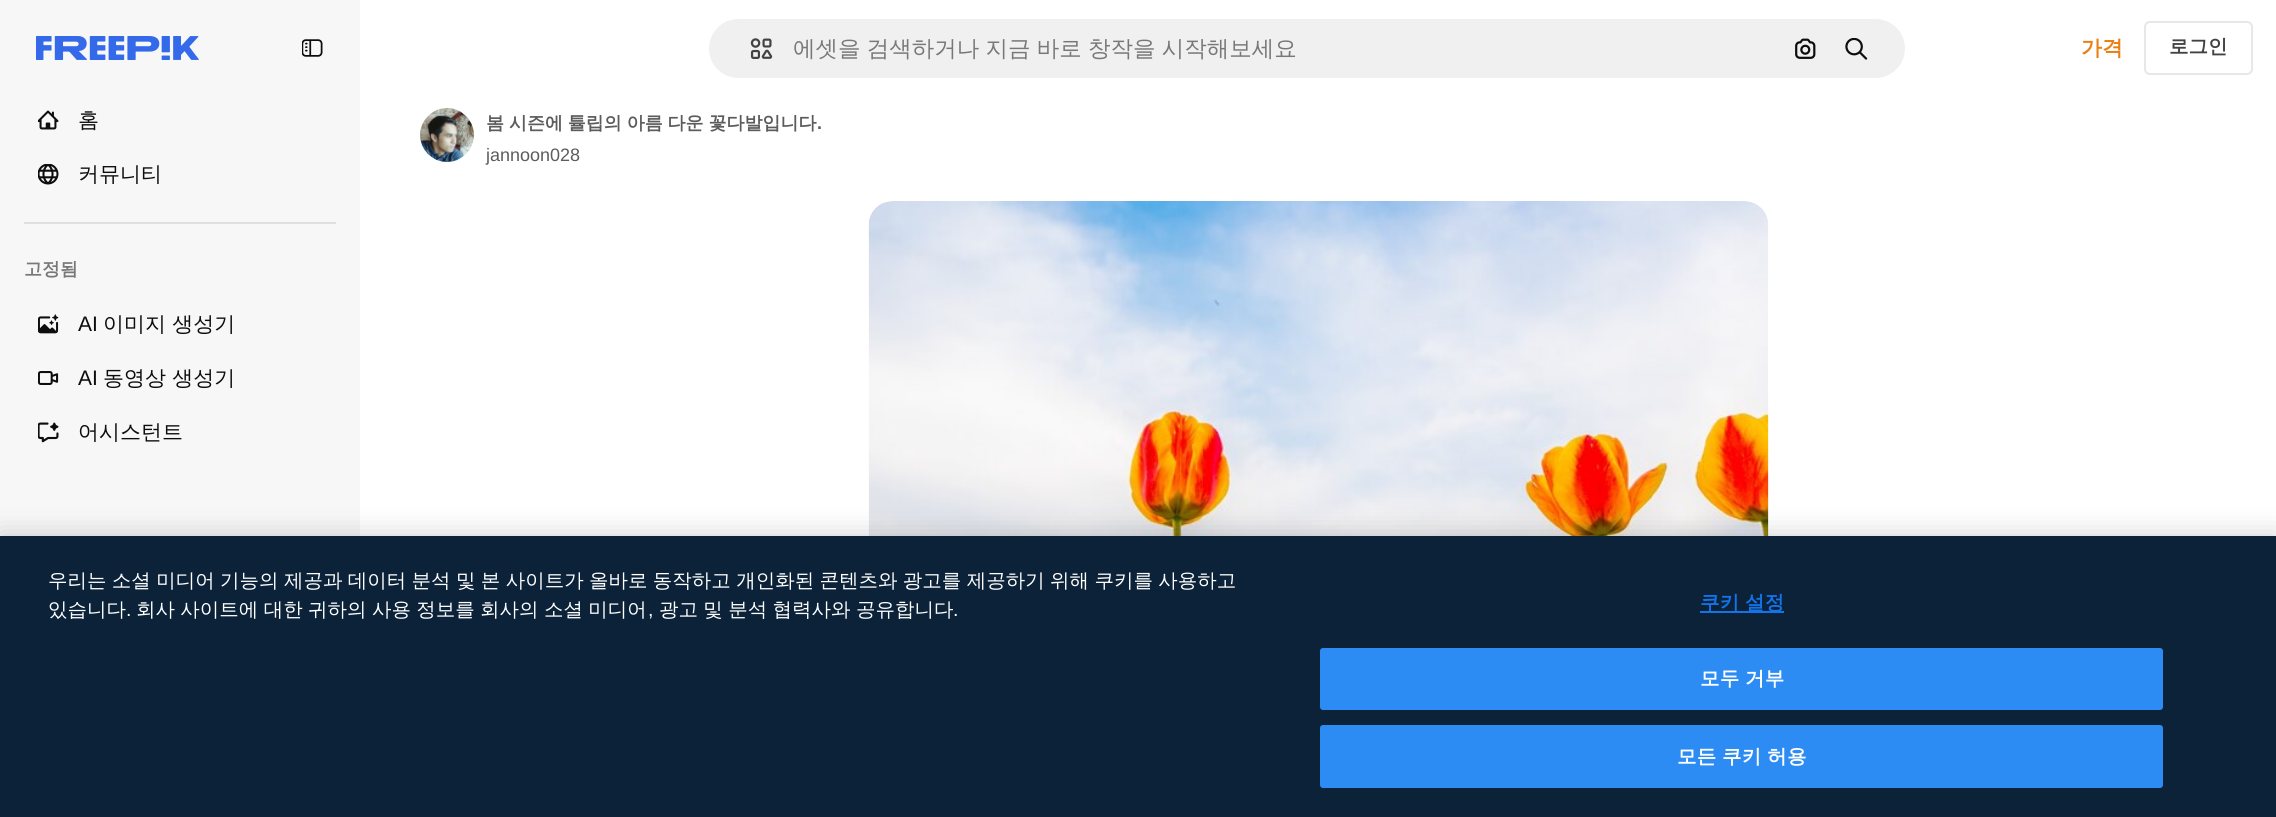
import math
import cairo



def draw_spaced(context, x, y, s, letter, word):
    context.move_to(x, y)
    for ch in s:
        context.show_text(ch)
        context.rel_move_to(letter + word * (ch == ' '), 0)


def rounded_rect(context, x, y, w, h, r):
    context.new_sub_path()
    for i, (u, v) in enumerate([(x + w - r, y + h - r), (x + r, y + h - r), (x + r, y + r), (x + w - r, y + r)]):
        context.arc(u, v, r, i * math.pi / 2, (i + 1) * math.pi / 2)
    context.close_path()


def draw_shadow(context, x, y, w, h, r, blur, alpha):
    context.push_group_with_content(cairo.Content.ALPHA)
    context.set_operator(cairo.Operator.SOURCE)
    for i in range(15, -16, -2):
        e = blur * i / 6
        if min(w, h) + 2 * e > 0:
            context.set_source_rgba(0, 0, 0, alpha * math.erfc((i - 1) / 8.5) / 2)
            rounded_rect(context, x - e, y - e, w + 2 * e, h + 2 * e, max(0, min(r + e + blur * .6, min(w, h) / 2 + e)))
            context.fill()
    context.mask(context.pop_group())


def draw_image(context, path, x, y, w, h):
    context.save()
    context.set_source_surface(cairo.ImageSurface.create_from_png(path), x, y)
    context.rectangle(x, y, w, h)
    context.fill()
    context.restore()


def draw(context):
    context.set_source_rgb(1, 1, 1)
    context.paint()
    context.set_source_rgb(247 / 255, 247 / 255, 247 / 255)
    context.rectangle(0, 0, 360, 536)
    context.fill()
    draw_image(context, "images/1.png", 36, 36, 163, 24)
    draw_image(context, "images/2.png", 302, 39, 21, 18)
    draw_image(context, "images/3.png", 38, 110, 21, 20)
    draw_image(context, "images/4.png", 38, 164, 21, 21)
    context.set_source_rgb(224 / 255, 224 / 255, 224 / 255)
    context.rectangle(24, 222, 312, 2)
    context.fill()
    draw_image(context, "images/5.png", 38, 314, 21, 20)
    draw_image(context, "images/6.png", 38, 371, 21, 14)
    draw_image(context, "images/7.png", 38, 422, 21, 21)
    context.set_source_rgb(240 / 255, 240 / 255, 240 / 255)
    rounded_rect(context, 708, 18, 1198, 61, 30.5)
    context.fill_preserve()
    context.set_source_rgb(1, 1, 1)
    context.stroke()
    draw_image(context, "images/8.png", 750, 38, 23, 21)
    draw_image(context, "images/9.png", 1795, 38, 21, 21)
    draw_image(context, "images/10.png", 1845, 38, 23, 22)
    rounded_rect(context, 2145, 22, 107, 52, 5)
    context.set_source_rgb(231 / 255, 231 / 255, 231 / 255)
    context.stroke()
    draw_image(context, "images/11.png", 420, 108, 54, 54)
    draw_image(context, "images/12.png", 868, 201, 901, 335)
    context.set_source_rgb(0, 0, 0)
    draw_shadow(context, 0, 536, 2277, 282, 0, 13.5, 0.2)
    context.set_source_rgb(11 / 255, 34 / 255, 57 / 255)
    context.rectangle(0, 536, 2276, 281)
    context.fill()
    context.set_source_rgb(18 / 255, 115 / 255, 235 / 255)
    context.rectangle(1700, 611, 84, 2)
    context.fill()
    context.set_source_rgb(44 / 255, 140 / 255, 244 / 255)
    rounded_rect(context, 1321, 649, 841, 60, 2)
    context.fill_preserve()
    context.stroke()
    rounded_rect(context, 1321, 726, 841, 61, 2)
    context.fill_preserve()
    context.stroke()
    context.select_font_face("WenQuanYi Zen Hei Medium")
    context.set_font_size(21)
    context.set_source_rgb(13 / 255, 13 / 255, 13 / 255)
    context.move_to(78, 127)
    context.show_text("홈")
    context.move_to(78, 181)
    context.show_text("커뮤니티")
    context.select_font_face("WenQuanYi Zen Hei", cairo.FontSlant.NORMAL, cairo.FontWeight.BOLD)
    context.set_font_size(18)
    context.set_source_rgb(120 / 255, 120 / 255, 120 / 255)
    context.move_to(24, 275)
    context.show_text("고정됨")
    context.select_font_face("Liberation Sans")
    context.set_font_size(21)
    context.set_source_rgb(13 / 255, 13 / 255, 13 / 255)
    context.move_to(78, 331)
    context.show_text("AI")
    context.select_font_face("WenQuanYi Zen Hei Medium")
    context.move_to(103, 331)
    context.show_text("이미지 생성기")
    context.select_font_face("Liberation Sans")
    context.move_to(78, 385)
    context.show_text("AI")
    context.select_font_face("WenQuanYi Zen Hei Medium")
    context.move_to(103, 385)
    context.show_text("동영상 생성기")
    context.move_to(78, 439)
    context.show_text("어시스턴트")
    context.set_font_size(22.5)
    context.set_source_rgb(120 / 255, 120 / 255, 120 / 255)
    draw_spaced(context, 793, 56, "에셋을 검색하거나 지금 바로 창작을 시작해보세요", 0, -0.5)
    context.select_font_face("WenQuanYi Zen Hei", cairo.FontSlant.NORMAL, cairo.FontWeight.BOLD)
    context.set_font_size(21)
    context.set_source_rgb(234 / 255, 126 / 255, 17 / 255)
    context.move_to(2081, 55)
    context.show_text("가격")
    context.set_font_size(19.5)
    context.set_source_rgb(66 / 255, 66 / 255, 66 / 255)
    context.move_to(2169, 53)
    context.show_text("로그인")
    context.set_font_size(18)
    context.set_source_rgb(92 / 255, 92 / 255, 92 / 255)
    draw_spaced(context, 486, 129, "봄 시즌에 튤립의 아름 다운 꽃다발입니다", 0, -0.5)
    context.select_font_face("Liberation Sans", cairo.FontSlant.NORMAL, cairo.FontWeight.BOLD)
    context.move_to(817, 129)
    context.show_text(".")
    context.select_font_face("Liberation Sans")
    context.move_to(486, 161)
    context.show_text("jannoon028")
    context.select_font_face("WenQuanYi Zen Hei Medium")
    context.set_font_size(19.5)
    context.set_source_rgb(1, 1, 1)
    draw_spaced(context, 48, 587, "우리는 소셜 미디어 기능의 제공과 데이터 분석 및 본 사이트가 올바로 동작하고 개인화된 콘텐츠와 광고를 제공하기 위해 쿠키를 사용하고", 0, -0.5)
    context.move_to(48, 616)
    context.show_text("있습니다")
    context.select_font_face("Liberation Sans")
    context.move_to(126, 616)
    context.show_text(".")
    context.select_font_face("WenQuanYi Zen Hei Medium")
    draw_spaced(context, 136, 616, "회사 사이트에 대한 귀하의 사용 정보를 회사의 소셜 미디어", 0, -0.5)
    context.select_font_face("Liberation Sans")
    context.move_to(648, 616)
    context.show_text(",")
    context.select_font_face("WenQuanYi Zen Hei Medium")
    draw_spaced(context, 659, 616, "광고 및 분석 협력사와 공유합니다", 0, -0.5)
    context.select_font_face("Liberation Sans")
    context.move_to(953, 616)
    context.show_text(".")
    context.select_font_face("WenQuanYi Zen Hei", cairo.FontSlant.NORMAL, cairo.FontWeight.BOLD)
    context.set_source_rgb(18 / 255, 115 / 255, 235 / 255)
    draw_spaced(context, 1700, 609, "쿠키 설정", 0.25, -0.5)
    context.set_source_rgb(1, 1, 1)
    draw_spaced(context, 1700, 685, "모두 거부", 0.25, -0.5)
    draw_spaced(context, 1677, 763, "모든 쿠키 허용", 0.25, -0.5)


surface = cairo.ImageSurface(cairo.Format.RGB24, 2276, 817)
context = cairo.Context(surface)
options = cairo.FontOptions()
options.set_hint_metrics(cairo.HintMetrics.OFF)
options.set_hint_style(cairo.HintStyle.NONE)
context.set_font_options(options)
context.set_miter_limit(4)
draw(context)
surface.write_to_png("out.png")
